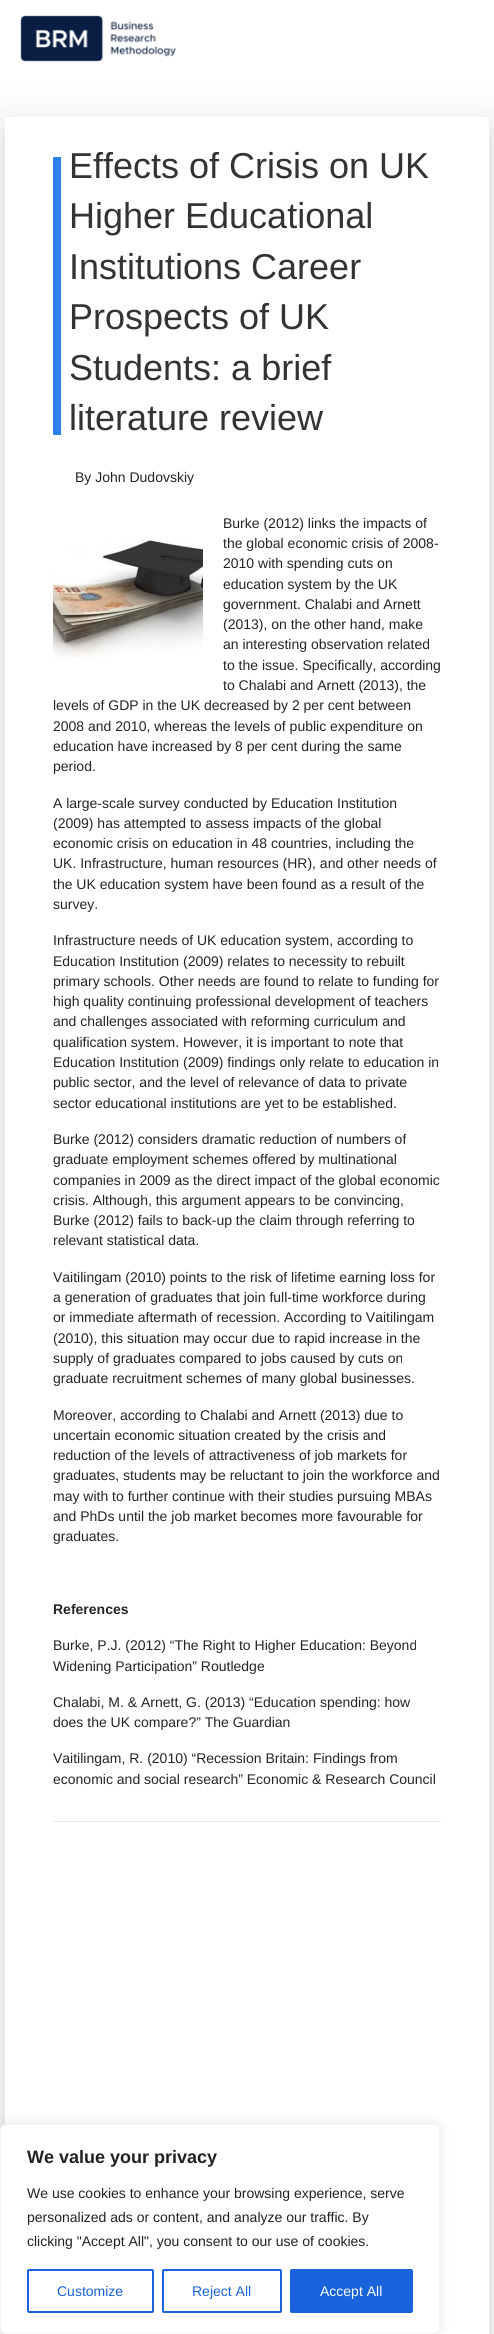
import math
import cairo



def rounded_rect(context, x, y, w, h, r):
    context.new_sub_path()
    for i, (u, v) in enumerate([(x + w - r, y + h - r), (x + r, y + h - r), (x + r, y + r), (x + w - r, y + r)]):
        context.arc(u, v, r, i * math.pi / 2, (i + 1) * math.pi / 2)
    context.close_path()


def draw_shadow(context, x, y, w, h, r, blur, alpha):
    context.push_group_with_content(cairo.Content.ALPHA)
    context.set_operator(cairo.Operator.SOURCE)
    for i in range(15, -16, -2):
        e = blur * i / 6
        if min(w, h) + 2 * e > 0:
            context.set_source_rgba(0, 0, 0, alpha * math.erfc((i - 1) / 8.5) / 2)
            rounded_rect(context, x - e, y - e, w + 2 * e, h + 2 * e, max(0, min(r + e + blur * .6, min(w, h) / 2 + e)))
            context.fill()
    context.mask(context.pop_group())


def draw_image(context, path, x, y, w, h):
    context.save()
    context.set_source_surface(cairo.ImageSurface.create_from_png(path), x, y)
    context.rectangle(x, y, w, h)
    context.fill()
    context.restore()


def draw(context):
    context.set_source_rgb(1, 1, 1)
    context.paint()
    draw_image(context, "images/1.png", 20, 15, 156, 47)
    context.save()
    context.set_fill_rule(cairo.FillRule.EVEN_ODD)
    context.new_path()
    context.move_to(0, 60)
    context.line_to(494, 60)
    context.line_to(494, 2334)
    context.line_to(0, 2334)
    context.close_path()
    context.move_to(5, 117)
    context.line_to(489, 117)
    context.line_to(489, 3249)
    context.line_to(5, 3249)
    context.close_path()
    context.clip()
    context.set_source_rgb(0, 0, 0)
    draw_shadow(context, 5, 133, 484, 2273, 0, 24, 0.18)
    context.restore()
    context.set_source_rgb(47 / 255, 128 / 255, 237 / 255)
    context.rectangle(53, 157, 8, 278)
    context.fill()
    draw_image(context, "images/2.png", 53, 540, 150, 119)
    context.set_source_rgb(230 / 255, 230 / 255, 230 / 255)
    context.rectangle(53, 1821, 388, 1)
    context.fill()
    context.set_source_rgb(172 / 255, 171 / 255, 171 / 255)
    draw_shadow(context, 0, 2123, 440, 210, 6, 5, 0.3)
    context.set_source_rgb(1, 1, 1)
    rounded_rect(context, 0.5, 2124.5, 439, 209, 5.5)
    context.fill_preserve()
    context.set_source_rgb(244 / 255, 244 / 255, 244 / 255)
    context.set_line_width(1)
    context.stroke()
    rounded_rect(context, 28, 2270, 125, 42, 1)
    context.set_source_rgb(24 / 255, 99 / 255, 220 / 255)
    context.set_line_width(2)
    context.stroke()
    rounded_rect(context, 163, 2270, 118, 42, 1)
    context.stroke()
    rounded_rect(context, 291, 2270, 121, 42, 1)
    context.fill_preserve()
    context.stroke()
    context.select_font_face("Liberation Sans")
    context.set_font_size(36)
    context.set_source_rgb(51 / 255, 51 / 255, 51 / 255)
    context.move_to(69, 178)
    context.show_text("Effects of Crisis on UK")
    context.move_to(69, 228)
    context.show_text("Higher Educational")
    context.move_to(69, 279)
    context.show_text("Institutions Career")
    context.move_to(69, 329)
    context.show_text("Prospects of UK")
    context.move_to(69, 380)
    context.show_text("Students: a brief")
    context.move_to(69, 430)
    context.show_text("literature review")
    context.set_font_size(14)
    context.set_source_rgb(33 / 255, 37 / 255, 41 / 255)
    context.move_to(75, 482)
    context.show_text("By John Dudovskiy")
    context.move_to(223, 528)
    context.show_text("Burke (2012) links the impacts of")
    context.move_to(223, 548)
    context.show_text("the global economic crisis of 2008-")
    context.move_to(223, 568)
    context.show_text("2010 with spending cuts on")
    context.move_to(223, 589)
    context.show_text("education system by the UK")
    context.move_to(223, 609)
    context.show_text("government. Chalabi and Arnett")
    context.move_to(223, 629)
    context.show_text("(2013), on the other hand, make")
    context.move_to(223, 649)
    context.show_text("an interesting observation related")
    context.move_to(223, 670)
    context.show_text("to the issue. Specifically, according")
    context.move_to(223, 690)
    context.show_text("to Chalabi and Arnett (2013), the")
    context.move_to(53, 710)
    context.show_text("levels of GDP in the UK decreased by 2 per cent between")
    context.move_to(53, 731)
    context.show_text("2008 and 2010, whereas the levels of public expenditure on")
    context.move_to(53, 751)
    context.show_text("education have increased by 8 per cent during the same")
    context.move_to(53, 771)
    context.show_text("period.")
    context.move_to(53, 808)
    context.show_text("A large-scale survey conducted by Education Institution")
    context.move_to(53, 828)
    context.show_text("(2009) has attempted to assess impacts of the global")
    context.move_to(53, 848)
    context.show_text("economic crisis on education in 48 countries, including the")
    context.move_to(53, 868)
    context.show_text("UK. Infrastructure, human resources (HR), and other needs of")
    context.move_to(53, 889)
    context.show_text("the UK education system have been found as a result of the")
    context.move_to(53, 909)
    context.show_text("survey.")
    context.move_to(53, 945)
    context.show_text("Infrastructure needs of UK education system, according to")
    context.move_to(53, 966)
    context.show_text("Education Institution (2009) relates to necessity to rebuilt")
    context.move_to(53, 986)
    context.show_text("primary schools. Other needs are found to relate to funding for")
    context.move_to(53, 1006)
    context.show_text("high quality continuing professional development of teachers")
    context.move_to(53, 1026)
    context.show_text("and challenges associated with reforming curriculum and")
    context.move_to(53, 1047)
    context.show_text("qualification system. However, it is important to note that")
    context.move_to(53, 1067)
    context.show_text("Education Institution (2009) findings only relate to education in")
    context.move_to(53, 1087)
    context.show_text("public sector, and the level of relevance of data to private")
    context.move_to(53, 1108)
    context.show_text("sector educational institutions are yet to be established.")
    context.move_to(53, 1144)
    context.show_text("Burke (2012) considers dramatic reduction of numbers of")
    context.move_to(53, 1164)
    context.show_text("graduate employment schemes offered by multinational")
    context.move_to(53, 1185)
    context.show_text("companies in 2009 as the direct impact of the global economic")
    context.move_to(53, 1205)
    context.show_text("crisis. Although, this argument appears to be convincing,")
    context.move_to(53, 1225)
    context.show_text("Burke (2012) fails to back-up the claim through referring to")
    context.move_to(53, 1245)
    context.show_text("relevant statistical data.")
    context.move_to(53, 1282)
    context.show_text("Vaitilingam (2010) points to the risk of lifetime earning loss for")
    context.move_to(53, 1302)
    context.show_text("a generation of graduates that join full-time workforce during")
    context.move_to(53, 1322)
    context.show_text("or immediate aftermath of recession. According to Vaitilingam")
    context.move_to(53, 1343)
    context.show_text("(2010), this situation may occur due to rapid increase in the")
    context.move_to(53, 1363)
    context.show_text("supply of graduates compared to jobs caused by cuts on")
    context.move_to(53, 1383)
    context.show_text("graduate recruitment schemes of many global businesses.")
    context.move_to(53, 1420)
    context.show_text("Moreover, according to Chalabi and Arnett (2013) due to")
    context.move_to(53, 1440)
    context.show_text("uncertain economic situation created by the crisis and")
    context.move_to(53, 1460)
    context.show_text("reduction of the levels of attractiveness of job markets for")
    context.move_to(53, 1480)
    context.show_text("graduates, students may be reluctant to join the workforce and")
    context.move_to(53, 1501)
    context.show_text("may with to further continue with their studies pursuing MBAs")
    context.move_to(53, 1521)
    context.show_text("and PhDs until the job market becomes more favourable for")
    context.move_to(53, 1541)
    context.show_text("graduates.")
    context.select_font_face("Liberation Sans", cairo.FontSlant.NORMAL, cairo.FontWeight.BOLD)
    context.move_to(53, 1614)
    context.show_text("References")
    context.select_font_face("Liberation Sans")
    context.move_to(53, 1650)
    context.show_text("Burke, P.J. (2012) “The Right to Higher Education: Beyond")
    context.move_to(53, 1671)
    context.show_text("Widening Participation” Routledge")
    context.move_to(53, 1707)
    context.show_text("Chalabi, M. & Arnett, G. (2013) “Education spending: how")
    context.move_to(53, 1727)
    context.show_text("does the UK compare?” The Guardian")
    context.move_to(53, 1763)
    context.show_text("Vaitilingam, R. (2010) “Recession Britain: Findings from")
    context.move_to(53, 1784)
    context.show_text("economic and social research” Economic & Research Council")
    context.select_font_face("Liberation Sans", cairo.FontSlant.NORMAL, cairo.FontWeight.BOLD)
    context.set_font_size(18)
    context.set_source_rgb(33 / 255, 33 / 255, 33 / 255)
    context.move_to(27, 2163)
    context.show_text("We value your privacy")
    context.select_font_face("Liberation Sans")
    context.set_font_size(14)
    context.move_to(27, 2198)
    context.show_text("We use cookies to enhance your browsing experience, serve")
    context.move_to(27, 2222)
    context.show_text("personalized ads or content, and analyze our traffic. By")
    context.move_to(27, 2246)
    context.show_text("clicking \"Accept All\", you consent to our use of cookies.")
    context.set_source_rgb(24 / 255, 99 / 255, 220 / 255)
    context.move_to(57, 2296)
    context.show_text("Customize")
    context.move_to(192, 2296)
    context.show_text("Reject All")
    context.set_source_rgb(1, 1, 1)
    context.move_to(320, 2296)
    context.show_text("Accept All")


surface = cairo.ImageSurface(cairo.Format.RGB24, 494, 2334)
context = cairo.Context(surface)
options = cairo.FontOptions()
options.set_hint_metrics(cairo.HintMetrics.OFF)
options.set_hint_style(cairo.HintStyle.NONE)
context.set_font_options(options)
context.set_miter_limit(4)
draw(context)
surface.write_to_png("out.png")
